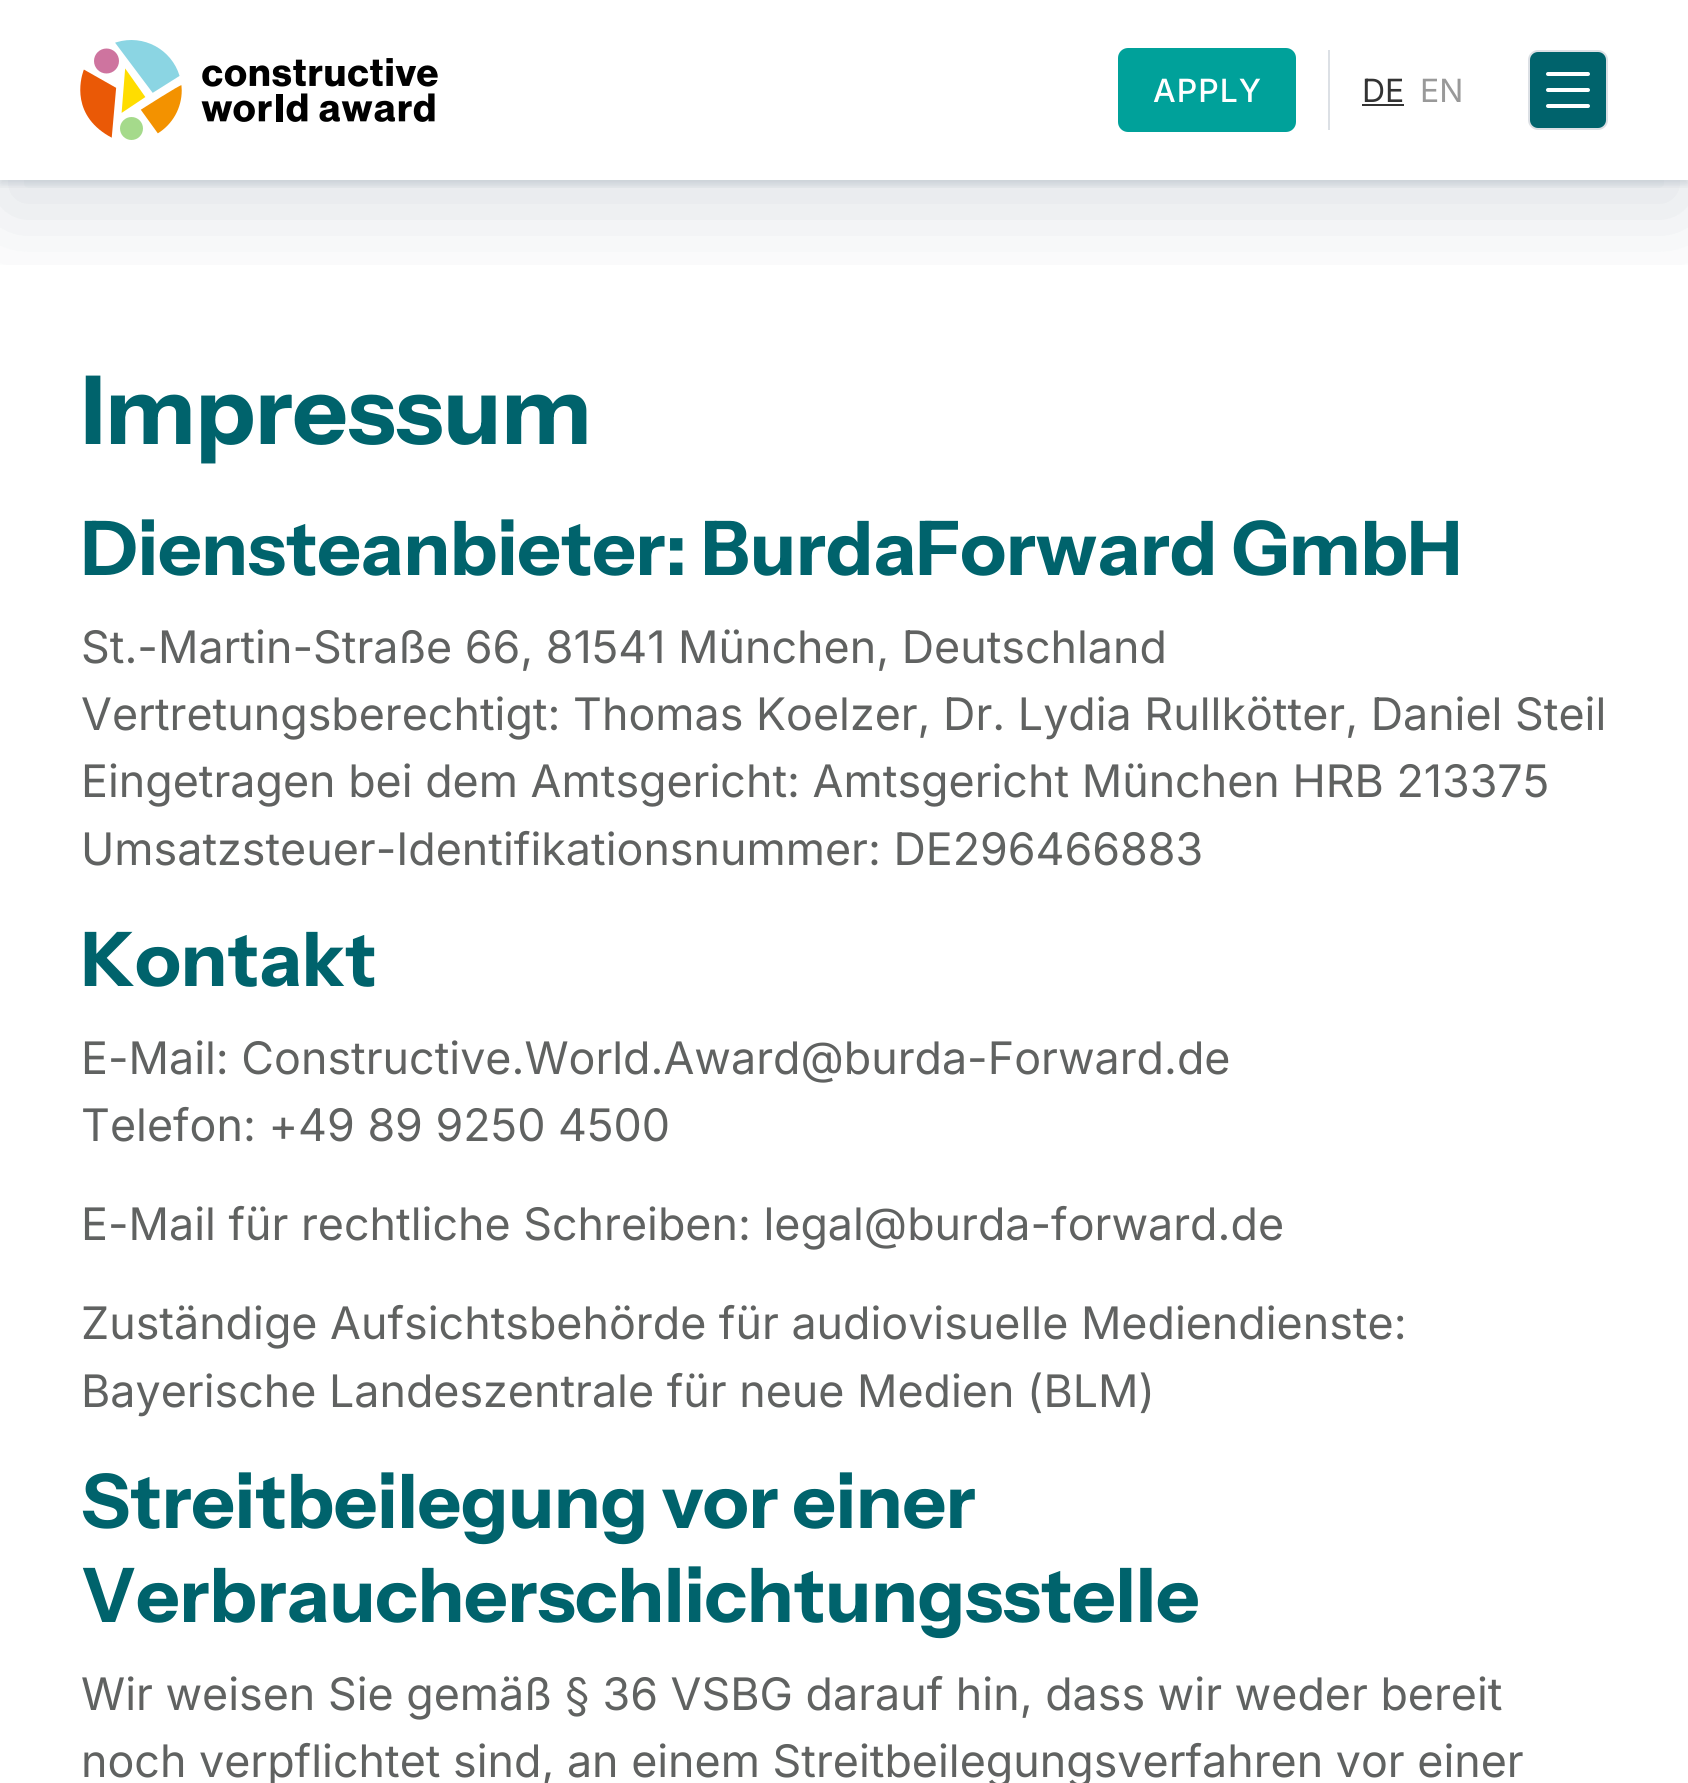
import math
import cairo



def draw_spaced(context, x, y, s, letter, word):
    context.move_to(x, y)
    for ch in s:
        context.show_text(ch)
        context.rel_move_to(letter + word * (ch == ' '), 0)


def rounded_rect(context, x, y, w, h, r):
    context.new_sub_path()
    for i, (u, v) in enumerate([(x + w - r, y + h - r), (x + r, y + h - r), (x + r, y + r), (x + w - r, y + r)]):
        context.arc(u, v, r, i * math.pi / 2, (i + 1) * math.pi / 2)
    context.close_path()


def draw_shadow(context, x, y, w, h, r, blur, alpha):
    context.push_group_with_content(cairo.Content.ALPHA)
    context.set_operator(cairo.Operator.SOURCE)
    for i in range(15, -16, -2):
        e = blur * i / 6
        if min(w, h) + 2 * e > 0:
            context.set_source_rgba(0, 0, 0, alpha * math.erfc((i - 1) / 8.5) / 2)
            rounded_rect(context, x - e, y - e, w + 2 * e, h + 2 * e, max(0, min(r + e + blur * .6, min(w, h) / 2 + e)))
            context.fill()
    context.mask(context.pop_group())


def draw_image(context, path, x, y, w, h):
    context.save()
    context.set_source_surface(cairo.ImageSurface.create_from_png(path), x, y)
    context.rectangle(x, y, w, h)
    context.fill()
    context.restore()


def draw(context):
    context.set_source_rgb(1, 1, 1)
    context.paint()
    context.save()
    context.rectangle(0, 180, 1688, 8)
    context.clip()
    context.set_source_rgb(29 / 255, 58 / 255, 83 / 255)
    draw_shadow(context, 0, 4, 1688, 180, 0, 4, 0.15)
    context.restore()
    context.save()
    context.rectangle(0, 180, 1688, 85)
    context.clip()
    context.set_source_rgb(29 / 255, 58 / 255, 83 / 255)
    draw_shadow(context, 0, 32, 1688, 180, 0, 48, 0.15)
    context.restore()
    draw_image(context, "images/1.png", 80, 40, 358, 100)
    context.set_source_rgb(0, 161 / 255, 154 / 255)
    rounded_rect(context, 1118, 48, 178, 84, 10)
    context.fill()
    context.set_source_rgb(220 / 255, 224 / 255, 229 / 255)
    context.rectangle(1328, 50, 2, 80)
    context.fill()
    context.set_source_rgb(51 / 255, 51 / 255, 51 / 255)
    context.rectangle(1362, 104, 42, 2)
    context.fill()
    context.set_source_rgb(0, 99 / 255, 108 / 255)
    rounded_rect(context, 1529, 51, 78, 78, 9)
    context.fill_preserve()
    context.set_source_rgb(220 / 255, 224 / 255, 229 / 255)
    context.stroke()
    context.set_source_rgb(1, 1, 1)
    rounded_rect(context, 1546, 72, 44, 4, 2)
    context.fill()
    rounded_rect(context, 1546, 88, 44, 4, 2)
    context.fill()
    rounded_rect(context, 1546, 104, 44, 4, 2)
    context.fill()
    context.select_font_face("Inter Medium")
    context.set_font_size(32)
    draw_spaced(context, 1153, 102, "APPLY", 1, 0)
    context.select_font_face("Inter")
    context.set_source_rgb(51 / 255, 51 / 255, 51 / 255)
    context.move_to(1362, 102)
    context.show_text("DE")
    context.set_source_rgb(153 / 255, 153 / 255, 153 / 255)
    context.move_to(1420, 102)
    context.show_text("EN")
    context.select_font_face("Instrument Sans", cairo.FontSlant.NORMAL, cairo.FontWeight.BOLD)
    context.set_font_size(95)
    context.set_source_rgb(0, 99 / 255, 108 / 255)
    context.move_to(81, 444)
    context.show_text("Impressum")
    context.set_font_size(75.2)
    context.move_to(81, 575)
    context.show_text("Diensteanbieter: BurdaForward GmbH")
    context.select_font_face("Inter")
    context.set_font_size(44.8)
    context.set_source_rgb(96 / 255, 98 / 255, 97 / 255)
    context.move_to(81, 663)
    context.show_text("St.-Martin-Straße 66, 81541 München, Deutschland")
    context.move_to(81, 730)
    context.show_text("Vertretungsberechtigt: Thomas Koelzer, Dr. Lydia Rullkötter, Daniel Steil")
    context.move_to(81, 797)
    context.show_text("Eingetragen bei dem Amtsgericht: Amtsgericht München HRB 213375")
    context.move_to(81, 865)
    context.show_text("Umsatzsteuer-Identifikationsnummer: DE296466883")
    context.select_font_face("Instrument Sans", cairo.FontSlant.NORMAL, cairo.FontWeight.BOLD)
    context.set_font_size(75.2)
    context.set_source_rgb(0, 99 / 255, 108 / 255)
    context.move_to(81, 986)
    context.show_text("Kontakt")
    context.select_font_face("Inter")
    context.set_font_size(44.8)
    context.set_source_rgb(96 / 255, 98 / 255, 97 / 255)
    context.move_to(81, 1074)
    context.show_text("E-Mail: Constructive.World.Award@burda-Forward.de")
    context.move_to(81, 1141)
    context.show_text("Telefon: +49 89 9250 4500")
    context.move_to(81, 1240)
    context.show_text("E-Mail für rechtliche Schreiben: legal@burda-forward.de")
    context.move_to(81, 1339)
    context.show_text("Zuständige Aufsichtsbehörde für audiovisuelle Mediendienste:")
    context.move_to(81, 1407)
    context.show_text("Bayerische Landeszentrale für neue Medien (BLM)")
    context.select_font_face("Instrument Sans", cairo.FontSlant.NORMAL, cairo.FontWeight.BOLD)
    context.set_font_size(75.2)
    context.set_source_rgb(0, 99 / 255, 108 / 255)
    context.move_to(81, 1528)
    context.show_text("Streitbeilegung vor einer")
    context.move_to(81, 1622)
    context.show_text("Verbraucherschlichtungsstelle")
    context.select_font_face("Inter")
    context.set_font_size(44.8)
    context.set_source_rgb(96 / 255, 98 / 255, 97 / 255)
    context.move_to(81, 1710)
    context.show_text("Wir weisen Sie gemäß § 36 VSBG darauf hin, dass wir weder bereit")
    context.move_to(81, 1777)
    context.show_text("noch verpflichtet sind, an einem Streitbeilegungsverfahren vor einer")


surface = cairo.ImageSurface(cairo.Format.RGB24, 1688, 1783)
context = cairo.Context(surface)
options = cairo.FontOptions()
options.set_hint_metrics(cairo.HintMetrics.OFF)
options.set_hint_style(cairo.HintStyle.NONE)
context.set_font_options(options)
context.set_miter_limit(4)
draw(context)
surface.write_to_png("out.png")
